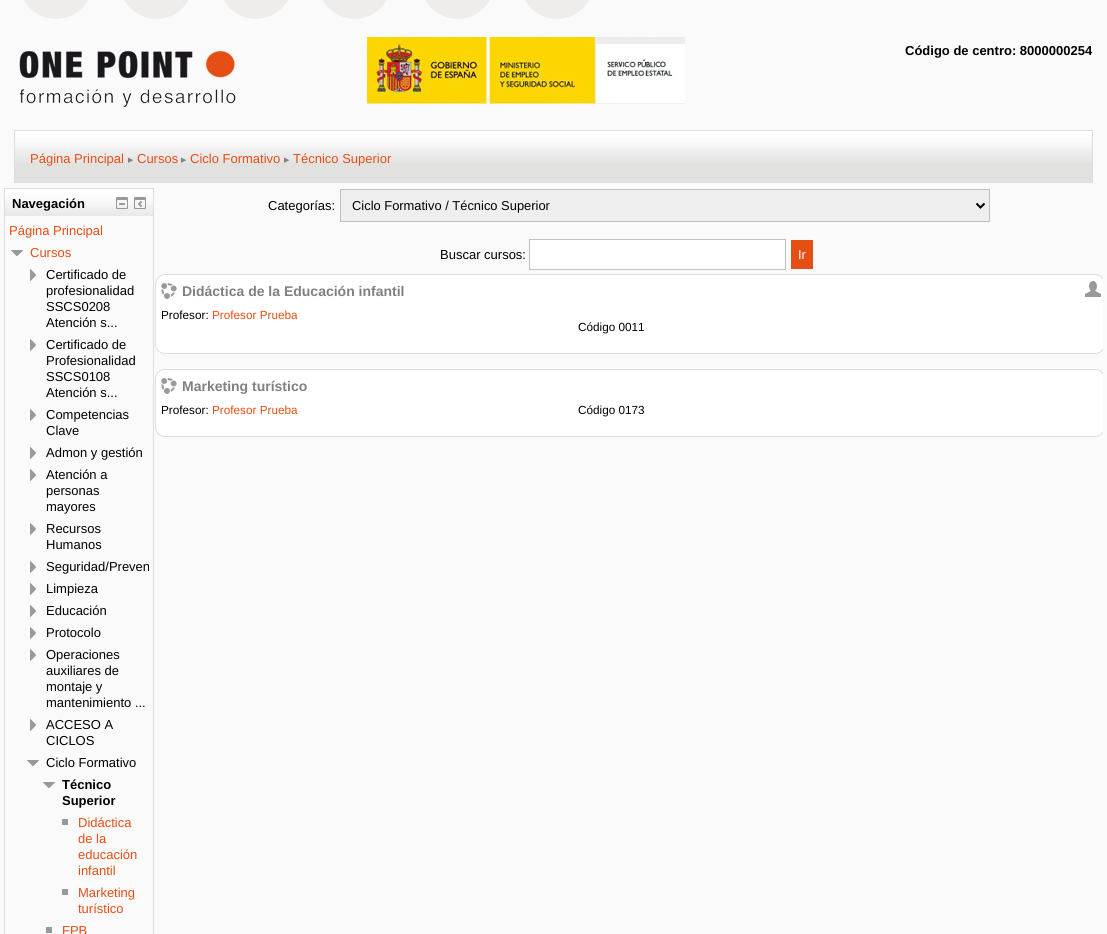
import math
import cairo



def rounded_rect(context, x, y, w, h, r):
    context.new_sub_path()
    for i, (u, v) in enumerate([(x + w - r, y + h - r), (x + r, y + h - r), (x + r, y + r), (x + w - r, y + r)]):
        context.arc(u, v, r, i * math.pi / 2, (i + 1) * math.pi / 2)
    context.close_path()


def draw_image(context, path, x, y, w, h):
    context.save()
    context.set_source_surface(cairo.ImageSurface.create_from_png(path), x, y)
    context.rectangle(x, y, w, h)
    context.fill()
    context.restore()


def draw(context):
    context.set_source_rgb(250 / 255, 250 / 255, 250 / 255)
    context.paint()
    draw_image(context, "images/1.png", 19, 0, 666, 107)
    context.set_source_rgb(225 / 255, 225 / 255, 223 / 255)
    context.rectangle(15, 163, 1077, 19)
    context.fill()
    draw_image(context, "images/2.png", 15, 131, 1077, 32)
    context.rectangle(14.5, 130.5, 1078, 52)
    context.set_source_rgb(221 / 255, 221 / 255, 221 / 255)
    context.set_line_width(1)
    context.stroke()
    context.rectangle(4.5, 188.5, 149, 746)
    context.stroke()
    draw_image(context, "images/3.png", 5, 189, 148, 27)
    draw_image(context, "images/4.png", 116, 197, 12, 12)
    draw_image(context, "images/5.png", 134, 197, 12, 12)
    draw_image(context, "images/6.png", 11, 250, 12, 6)
    draw_image(context, "images/7.png", 30, 269, 6, 12)
    draw_image(context, "images/7.png", 30, 339, 6, 12)
    draw_image(context, "images/7.png", 30, 409, 6, 12)
    draw_image(context, "images/7.png", 30, 447, 6, 12)
    draw_image(context, "images/7.png", 30, 469, 6, 12)
    draw_image(context, "images/7.png", 30, 523, 6, 12)
    draw_image(context, "images/7.png", 30, 561, 6, 12)
    draw_image(context, "images/7.png", 30, 583, 6, 12)
    draw_image(context, "images/7.png", 30, 605, 6, 12)
    draw_image(context, "images/7.png", 30, 627, 6, 12)
    draw_image(context, "images/7.png", 30, 649, 6, 12)
    draw_image(context, "images/7.png", 30, 719, 6, 12)
    draw_image(context, "images/6.png", 27, 760, 12, 6)
    draw_image(context, "images/6.png", 43, 782, 12, 6)
    context.set_source_rgb(153 / 255, 153 / 255, 153 / 255)
    context.rectangle(62, 819, 6, 6)
    context.fill()
    context.rectangle(62, 889, 6, 6)
    context.fill()
    context.rectangle(46, 927, 6, 6)
    context.fill()
    context.set_source_rgb(239 / 255, 239 / 255, 239 / 255)
    context.rectangle(340.5, 189.5, 649, 32)
    context.fill_preserve()
    context.set_source_rgb(192 / 255, 192 / 255, 192 / 255)
    context.stroke()
    context.new_path()
    context.move_to(976.5, 203.5)
    context.line_to(980.5, 207.5)
    context.line_to(984.5, 203.5)
    context.set_source_rgb(0, 0, 0)
    context.set_line_width(2)
    context.stroke()
    context.set_source_rgb(1, 1, 1)
    context.rectangle(529.5, 239.5, 256, 30)
    context.fill_preserve()
    context.set_source_rgb(192 / 255, 192 / 255, 192 / 255)
    context.set_line_width(1)
    context.stroke()
    context.set_source_rgb(229 / 255, 78 / 255, 20 / 255)
    context.rectangle(791, 240, 22, 29)
    context.fill()
    context.save()
    context.rectangle(155, 188, 948, 264)
    context.clip()
    context.set_source_rgb(1, 1, 1)
    rounded_rect(context, 155.5, 274.5, 949, 79, 9.5)
    context.fill_preserve()
    context.set_source_rgb(221 / 255, 221 / 255, 221 / 255)
    context.stroke()
    context.restore()
    draw_image(context, "images/8.png", 161, 283, 16, 16)
    draw_image(context, "images/9.png", 1085, 281, 16, 16)
    context.save()
    context.rectangle(155, 188, 948, 264)
    context.clip()
    context.set_source_rgb(1, 1, 1)
    rounded_rect(context, 155.5, 369.5, 949, 67, 9.5)
    context.fill_preserve()
    context.set_source_rgb(221 / 255, 221 / 255, 221 / 255)
    context.stroke()
    context.restore()
    draw_image(context, "images/8.png", 161, 378, 16, 16)
    context.select_font_face("Liberation Sans", cairo.FontSlant.NORMAL, cairo.FontWeight.BOLD)
    context.set_font_size(13)
    context.set_source_rgb(0, 0, 0)
    context.move_to(905, 55)
    context.show_text("Código de centro: 8000000254")
    context.select_font_face("Liberation Sans")
    context.set_source_rgb(229 / 255, 78 / 255, 20 / 255)
    context.move_to(30, 163)
    context.show_text("Página Principal")
    context.select_font_face("DejaVu Sans")
    context.set_font_size(7)
    context.set_source_rgb(128 / 255, 128 / 255, 128 / 255)
    context.move_to(128, 162)
    context.show_text("▶")
    context.select_font_face("Liberation Sans")
    context.set_font_size(13)
    context.set_source_rgb(229 / 255, 78 / 255, 20 / 255)
    context.move_to(137, 163)
    context.show_text("Cursos")
    context.select_font_face("DejaVu Sans")
    context.set_font_size(7)
    context.set_source_rgb(128 / 255, 128 / 255, 128 / 255)
    context.move_to(181, 162)
    context.show_text("▶")
    context.select_font_face("Liberation Sans")
    context.set_font_size(13)
    context.set_source_rgb(229 / 255, 78 / 255, 20 / 255)
    context.move_to(190, 163)
    context.show_text("Ciclo Formativo")
    context.select_font_face("DejaVu Sans")
    context.set_font_size(7)
    context.set_source_rgb(128 / 255, 128 / 255, 128 / 255)
    context.move_to(284, 162)
    context.show_text("▶")
    context.select_font_face("Liberation Sans")
    context.set_font_size(13)
    context.set_source_rgb(229 / 255, 78 / 255, 20 / 255)
    context.move_to(293, 163)
    context.show_text("Técnico Superior")
    context.select_font_face("Liberation Sans", cairo.FontSlant.NORMAL, cairo.FontWeight.BOLD)
    context.set_source_rgb(0, 0, 0)
    context.move_to(12, 208)
    context.show_text("Navegación")
    context.select_font_face("Liberation Sans")
    context.set_source_rgb(229 / 255, 78 / 255, 20 / 255)
    context.move_to(9, 235)
    context.show_text("Página Principal")
    context.move_to(30, 257)
    context.show_text("Cursos")
    context.set_source_rgb(0, 0, 0)
    context.move_to(46, 279)
    context.show_text("Certificado de")
    context.move_to(46, 295)
    context.show_text("profesionalidad")
    context.move_to(46, 311)
    context.show_text("SSCS0208")
    context.move_to(46, 327)
    context.show_text("Atención s...")
    context.move_to(46, 349)
    context.show_text("Certificado de")
    context.move_to(46, 365)
    context.show_text("Profesionalidad")
    context.move_to(46, 381)
    context.show_text("SSCS0108")
    context.move_to(46, 397)
    context.show_text("Atención s...")
    context.move_to(46, 419)
    context.show_text("Competencias")
    context.move_to(46, 435)
    context.show_text("Clave")
    context.move_to(46, 457)
    context.show_text("Admon y gestión")
    context.move_to(46, 479)
    context.show_text("Atención a")
    context.move_to(46, 495)
    context.show_text("personas")
    context.move_to(46, 511)
    context.show_text("mayores")
    context.move_to(46, 533)
    context.show_text("Recursos")
    context.move_to(46, 549)
    context.show_text("Humanos")
    context.save()
    context.rectangle(25, 556, 124, 22)
    context.clip()
    context.move_to(46, 571)
    context.show_text("Seguridad/Preven")
    context.restore()
    context.move_to(46, 593)
    context.show_text("Limpieza")
    context.move_to(46, 615)
    context.show_text("Educación")
    context.move_to(46, 637)
    context.show_text("Protocolo")
    context.move_to(46, 659)
    context.show_text("Operaciones")
    context.move_to(46, 675)
    context.show_text("auxiliares de")
    context.move_to(46, 691)
    context.show_text("montaje y")
    context.move_to(46, 707)
    context.show_text("mantenimiento ...")
    context.move_to(46, 729)
    context.show_text("ACCESO A")
    context.move_to(46, 745)
    context.show_text("CICLOS")
    context.move_to(46, 767)
    context.show_text("Ciclo Formativo")
    context.select_font_face("Liberation Sans", cairo.FontSlant.NORMAL, cairo.FontWeight.BOLD)
    context.move_to(62, 789)
    context.show_text("Técnico")
    context.move_to(62, 805)
    context.show_text("Superior")
    context.select_font_face("Liberation Sans")
    context.set_source_rgb(229 / 255, 78 / 255, 20 / 255)
    context.move_to(78, 827)
    context.show_text("Didáctica")
    context.move_to(78, 843)
    context.show_text("de la")
    context.move_to(78, 859)
    context.show_text("educación")
    context.move_to(78, 875)
    context.show_text("infantil")
    context.move_to(78, 897)
    context.show_text("Marketing")
    context.move_to(78, 913)
    context.show_text("turístico")
    context.move_to(62, 935)
    context.show_text("FPB")
    context.set_source_rgb(0, 0, 0)
    context.move_to(268, 210)
    context.show_text("Categorías:")
    context.set_font_size(12.9)
    context.move_to(352, 210)
    context.show_text("Ciclo Formativo / Técnico Superior")
    context.set_font_size(13)
    context.move_to(440, 259)
    context.show_text("Buscar cursos:")
    context.set_font_size(12.9)
    context.set_source_rgb(1, 1, 1)
    context.move_to(798, 259)
    context.show_text("Ir")
    context.select_font_face("Liberation Sans", cairo.FontSlant.NORMAL, cairo.FontWeight.BOLD)
    context.set_font_size(14)
    context.set_source_rgb(128 / 255, 128 / 255, 128 / 255)
    context.move_to(182, 296)
    context.show_text("Didáctica de la Educación infantil")
    context.select_font_face("Liberation Sans")
    context.set_font_size(11.75)
    context.set_source_rgb(0, 0, 0)
    context.move_to(161, 319)
    context.show_text("Profesor:")
    context.set_source_rgb(229 / 255, 78 / 255, 20 / 255)
    context.move_to(212, 319)
    context.show_text("Profesor Prueba")
    context.set_source_rgb(0, 0, 0)
    context.move_to(578, 331)
    context.show_text("Código 0011")
    context.select_font_face("Liberation Sans", cairo.FontSlant.NORMAL, cairo.FontWeight.BOLD)
    context.set_font_size(14)
    context.set_source_rgb(128 / 255, 128 / 255, 128 / 255)
    context.move_to(182, 391)
    context.show_text("Marketing turístico")
    context.select_font_face("Liberation Sans")
    context.set_font_size(11.75)
    context.set_source_rgb(0, 0, 0)
    context.move_to(161, 414)
    context.show_text("Profesor:")
    context.set_source_rgb(229 / 255, 78 / 255, 20 / 255)
    context.move_to(212, 414)
    context.show_text("Profesor Prueba")
    context.set_source_rgb(0, 0, 0)
    context.move_to(578, 414)
    context.show_text("Código 0173")


surface = cairo.ImageSurface(cairo.Format.RGB24, 1107, 934)
context = cairo.Context(surface)
options = cairo.FontOptions()
options.set_hint_metrics(cairo.HintMetrics.OFF)
options.set_hint_style(cairo.HintStyle.NONE)
context.set_font_options(options)
context.set_miter_limit(4)
draw(context)
surface.write_to_png("out.png")
